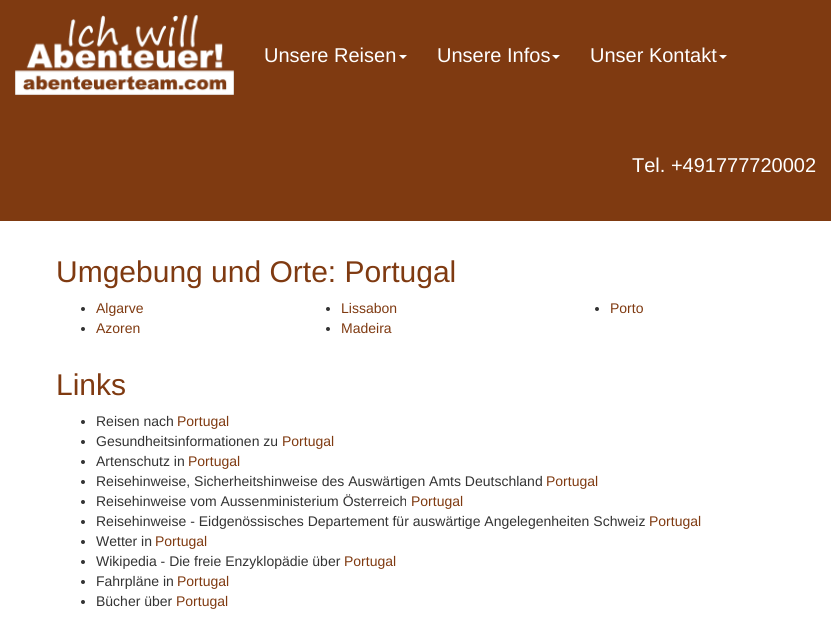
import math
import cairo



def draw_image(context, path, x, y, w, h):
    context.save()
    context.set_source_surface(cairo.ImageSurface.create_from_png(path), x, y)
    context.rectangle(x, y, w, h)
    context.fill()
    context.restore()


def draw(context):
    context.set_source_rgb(1, 1, 1)
    context.paint()
    context.set_source_rgb(127 / 255, 58 / 255, 17 / 255)
    context.rectangle(0, 0, 831, 221)
    context.fill()
    draw_image(context, "images/1.png", 15, 15, 219, 80)
    context.set_source_rgb(1, 1, 1)
    context.new_path()
    context.move_to(399, 55)
    context.line_to(407, 55)
    context.line_to(403, 59)
    context.close_path()
    context.fill()
    context.new_path()
    context.move_to(552, 55)
    context.line_to(560, 55)
    context.line_to(556, 59)
    context.close_path()
    context.fill()
    context.new_path()
    context.move_to(719, 55)
    context.line_to(727, 55)
    context.line_to(723, 59)
    context.close_path()
    context.fill()
    context.set_source_rgb(51 / 255, 51 / 255, 51 / 255)
    context.arc(83, 309, 2, 0, 2 * math.pi)
    context.fill()
    context.arc(83, 329, 2, 0, 2 * math.pi)
    context.fill()
    context.arc(328, 309, 2, 0, 2 * math.pi)
    context.fill()
    context.arc(328, 329, 2, 0, 2 * math.pi)
    context.fill()
    context.arc(597, 309, 2, 0, 2 * math.pi)
    context.fill()
    context.arc(83, 422, 2, 0, 2 * math.pi)
    context.fill()
    context.arc(83, 442, 2, 0, 2 * math.pi)
    context.fill()
    context.arc(83, 462, 2, 0, 2 * math.pi)
    context.fill()
    context.arc(83, 482, 2, 0, 2 * math.pi)
    context.fill()
    context.arc(83, 502, 2, 0, 2 * math.pi)
    context.fill()
    context.arc(83, 522, 2, 0, 2 * math.pi)
    context.fill()
    context.arc(83, 542, 2, 0, 2 * math.pi)
    context.fill()
    context.arc(83, 562, 2, 0, 2 * math.pi)
    context.fill()
    context.arc(83, 582, 2, 0, 2 * math.pi)
    context.fill()
    context.arc(83, 602, 2, 0, 2 * math.pi)
    context.fill()
    context.select_font_face("Liberation Sans")
    context.set_font_size(20)
    context.set_source_rgb(1, 1, 1)
    context.move_to(264, 62)
    context.show_text("Unsere Reisen")
    context.move_to(437, 62)
    context.show_text("Unsere Infos")
    context.move_to(590, 62)
    context.show_text("Unser Kontakt")
    context.move_to(632, 172)
    context.show_text("Tel. +491777720002")
    context.set_font_size(30)
    context.set_source_rgb(127 / 255, 58 / 255, 17 / 255)
    context.move_to(56, 282)
    context.show_text("Umgebung und Orte: Portugal")
    context.set_font_size(14)
    context.move_to(96, 313)
    context.show_text("Algarve")
    context.move_to(96, 333)
    context.show_text("Azoren")
    context.move_to(341, 313)
    context.show_text("Lissabon")
    context.move_to(341, 333)
    context.show_text("Madeira")
    context.move_to(610, 313)
    context.show_text("Porto")
    context.set_font_size(30)
    context.move_to(56, 395)
    context.show_text("Links")
    context.set_font_size(14)
    context.set_source_rgb(51 / 255, 51 / 255, 51 / 255)
    context.move_to(96, 426)
    context.show_text("Reisen nach")
    context.set_source_rgb(127 / 255, 58 / 255, 17 / 255)
    context.move_to(177, 426)
    context.show_text("Portugal")
    context.set_source_rgb(51 / 255, 51 / 255, 51 / 255)
    context.move_to(96, 446)
    context.show_text("Gesundheitsinformationen zu")
    context.set_source_rgb(127 / 255, 58 / 255, 17 / 255)
    context.move_to(282, 446)
    context.show_text("Portugal")
    context.set_source_rgb(51 / 255, 51 / 255, 51 / 255)
    context.move_to(96, 466)
    context.show_text("Artenschutz in")
    context.set_source_rgb(127 / 255, 58 / 255, 17 / 255)
    context.move_to(188, 466)
    context.show_text("Portugal")
    context.set_source_rgb(51 / 255, 51 / 255, 51 / 255)
    context.move_to(96, 486)
    context.show_text("Reisehinweise, Sicherheitshinweise des Auswärtigen Amts Deutschland")
    context.set_source_rgb(127 / 255, 58 / 255, 17 / 255)
    context.move_to(546, 486)
    context.show_text("Portugal")
    context.set_source_rgb(51 / 255, 51 / 255, 51 / 255)
    context.move_to(96, 506)
    context.show_text("Reisehinweise vom Aussenministerium Österreich")
    context.set_source_rgb(127 / 255, 58 / 255, 17 / 255)
    context.move_to(411, 506)
    context.show_text("Portugal")
    context.set_source_rgb(51 / 255, 51 / 255, 51 / 255)
    context.move_to(96, 526)
    context.show_text("Reisehinweise - Eidgenössisches Departement für auswärtige Angelegenheiten Schweiz")
    context.set_source_rgb(127 / 255, 58 / 255, 17 / 255)
    context.move_to(649, 526)
    context.show_text("Portugal")
    context.set_source_rgb(51 / 255, 51 / 255, 51 / 255)
    context.move_to(96, 546)
    context.show_text("Wetter in")
    context.set_source_rgb(127 / 255, 58 / 255, 17 / 255)
    context.move_to(155, 546)
    context.show_text("Portugal")
    context.set_source_rgb(51 / 255, 51 / 255, 51 / 255)
    context.move_to(96, 566)
    context.show_text("Wikipedia - Die freie Enzyklopädie über")
    context.set_source_rgb(127 / 255, 58 / 255, 17 / 255)
    context.move_to(344, 566)
    context.show_text("Portugal")
    context.set_source_rgb(51 / 255, 51 / 255, 51 / 255)
    context.move_to(96, 586)
    context.show_text("Fahrpläne in")
    context.set_source_rgb(127 / 255, 58 / 255, 17 / 255)
    context.move_to(177, 586)
    context.show_text("Portugal")
    context.set_source_rgb(51 / 255, 51 / 255, 51 / 255)
    context.move_to(96, 606)
    context.show_text("Bücher über")
    context.set_source_rgb(127 / 255, 58 / 255, 17 / 255)
    context.move_to(176, 606)
    context.show_text("Portugal")


surface = cairo.ImageSurface(cairo.Format.RGB24, 831, 617)
context = cairo.Context(surface)
options = cairo.FontOptions()
options.set_hint_metrics(cairo.HintMetrics.OFF)
options.set_hint_style(cairo.HintStyle.NONE)
context.set_font_options(options)
context.set_miter_limit(4)
draw(context)
surface.write_to_png("out.png")
